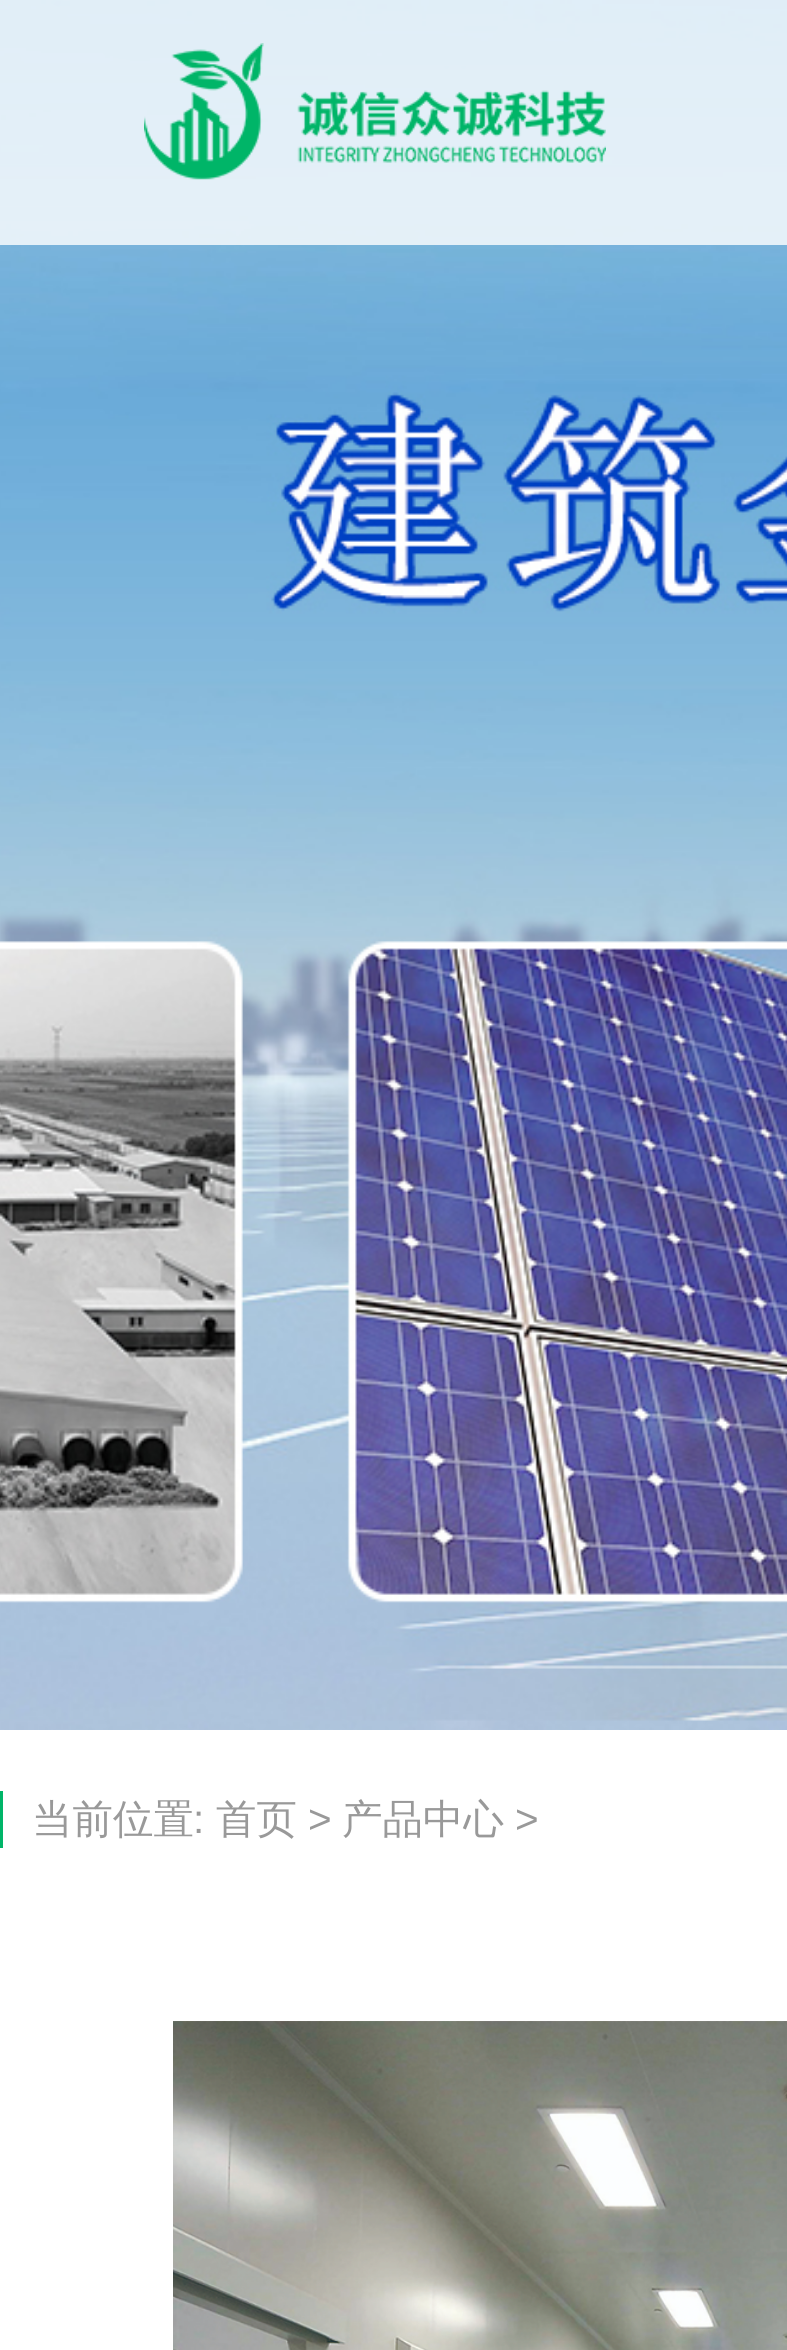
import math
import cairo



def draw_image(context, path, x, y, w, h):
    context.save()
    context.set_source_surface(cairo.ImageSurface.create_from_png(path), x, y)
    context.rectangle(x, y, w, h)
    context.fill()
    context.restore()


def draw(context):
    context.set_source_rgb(1, 1, 1)
    context.paint()
    draw_image(context, "images/2.png", 0, 0, 787, 1730)
    context.set_source_rgba(1, 1, 1, 0.8)
    context.rectangle(0, 0, 787, 245)
    context.fill()
    draw_image(context, "images/1.png", 144, 43, 462, 137)
    context.set_source_rgb(0, 181 / 255, 104 / 255)
    context.rectangle(0, 1791, 3, 57)
    context.fill()
    draw_image(context, "images/3.png", 173, 2021, 614, 329)
    context.select_font_face("WenQuanYi Zen Hei Medium")
    context.set_font_size(40.5)
    context.set_source_rgb(153 / 255, 153 / 255, 153 / 255)
    context.move_to(32, 1833)
    context.show_text("当前位置")
    context.select_font_face("Liberation Sans")
    context.move_to(193, 1833)
    context.show_text(":")
    context.select_font_face("WenQuanYi Zen Hei Medium")
    context.move_to(216, 1833)
    context.show_text("首页")
    context.select_font_face("Liberation Sans")
    context.move_to(308, 1833)
    context.show_text(">")
    context.select_font_face("WenQuanYi Zen Hei Medium")
    context.move_to(342, 1833)
    context.show_text("产品中心")
    context.select_font_face("Liberation Sans")
    context.move_to(515, 1833)
    context.show_text(">")


surface = cairo.ImageSurface(cairo.Format.RGB24, 787, 2350)
context = cairo.Context(surface)
options = cairo.FontOptions()
options.set_hint_metrics(cairo.HintMetrics.OFF)
options.set_hint_style(cairo.HintStyle.NONE)
context.set_font_options(options)
context.set_miter_limit(4)
draw(context)
surface.write_to_png("out.png")
